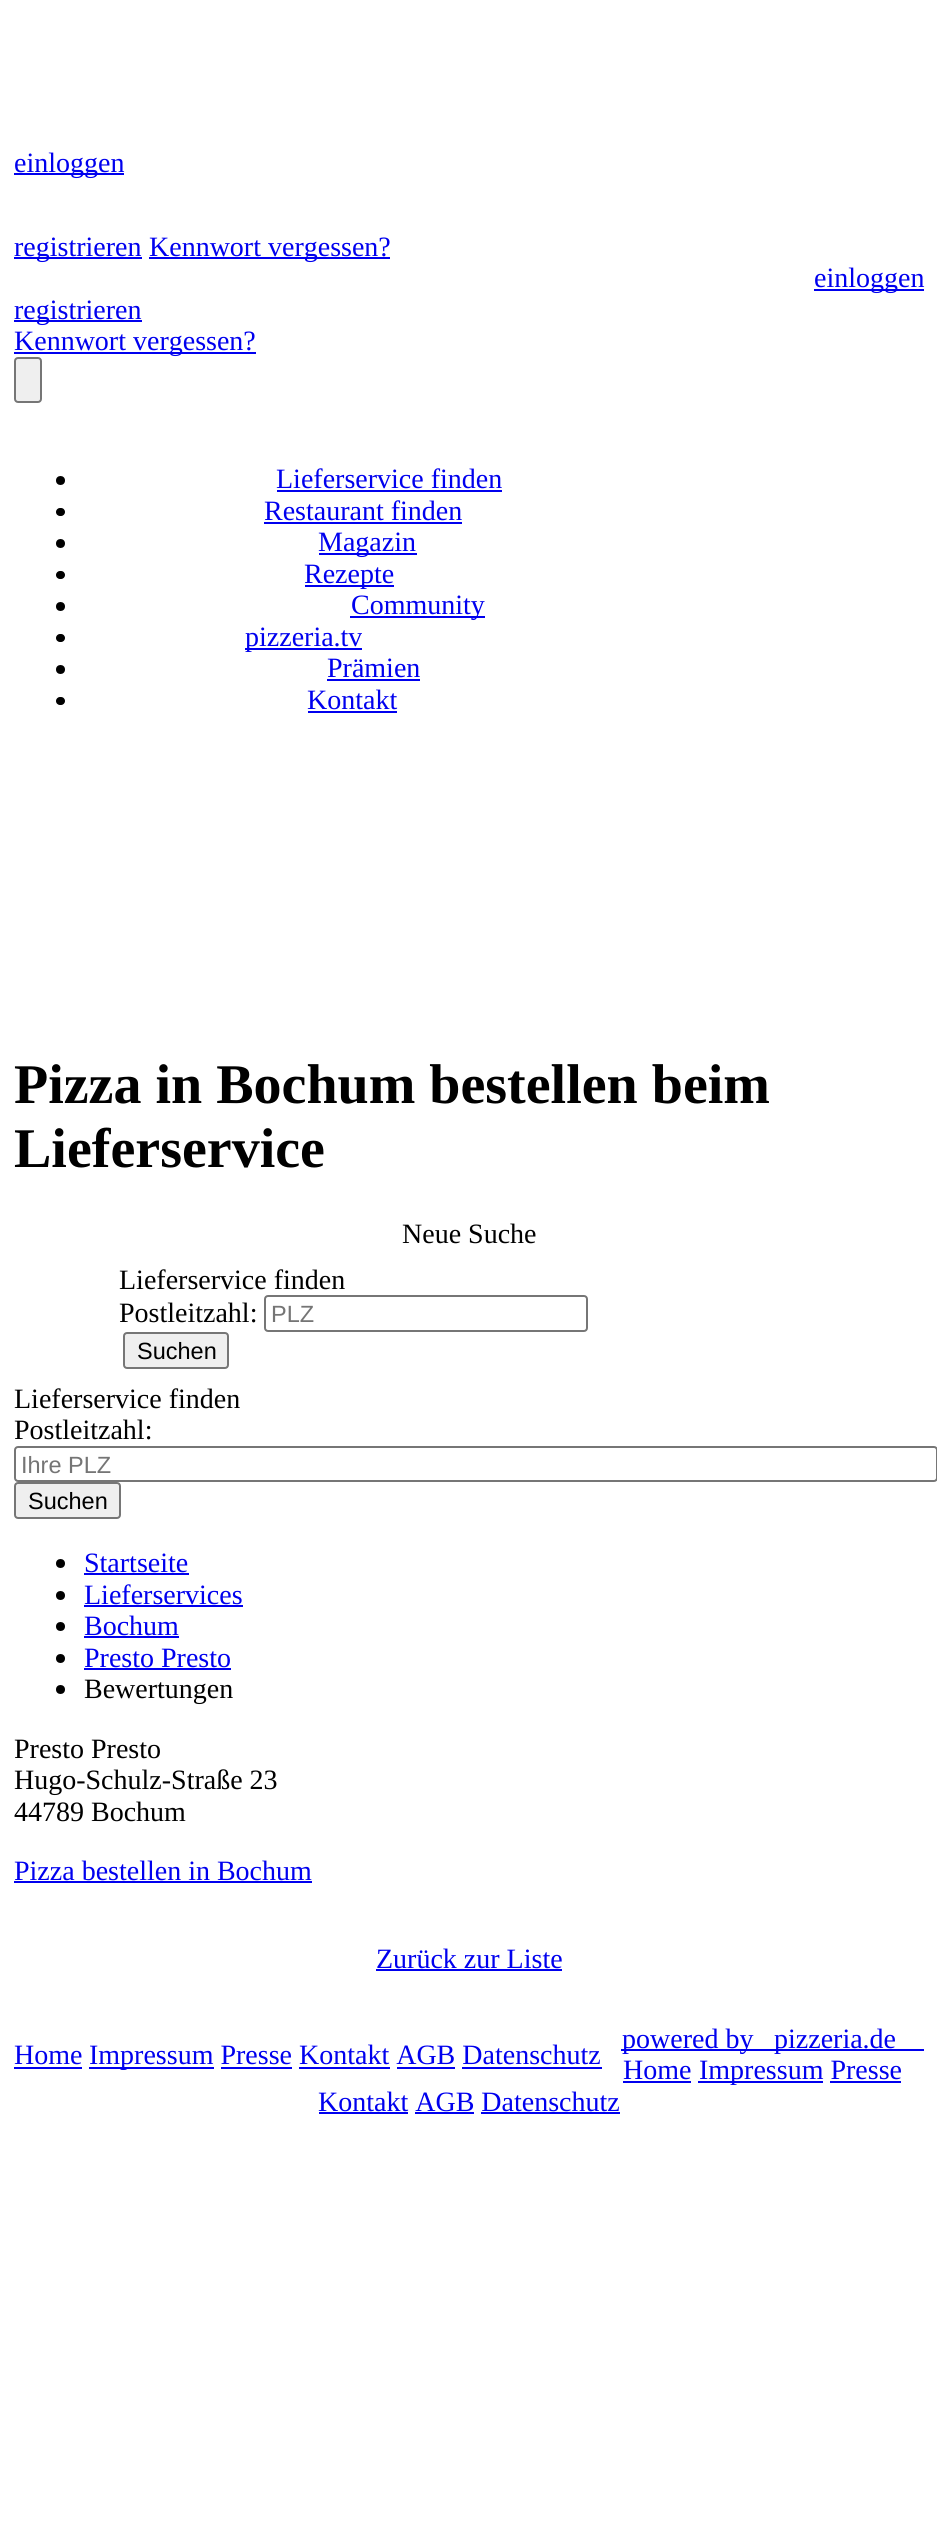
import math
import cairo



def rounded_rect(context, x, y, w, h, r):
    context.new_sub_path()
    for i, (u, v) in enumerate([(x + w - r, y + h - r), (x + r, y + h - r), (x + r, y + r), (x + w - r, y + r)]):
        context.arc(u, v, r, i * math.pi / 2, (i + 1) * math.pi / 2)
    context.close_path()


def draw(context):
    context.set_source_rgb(1, 1, 1)
    context.paint()
    context.set_source_rgb(0, 0, 238 / 255)
    context.rectangle(14, 173, 110, 2)
    context.fill()
    context.rectangle(14, 257, 128, 2)
    context.fill()
    context.rectangle(149, 257, 241, 2)
    context.fill()
    context.rectangle(814, 289, 110, 2)
    context.fill()
    context.rectangle(14, 320, 128, 2)
    context.fill()
    context.rectangle(14, 352, 242, 2)
    context.fill()
    context.set_source_rgb(239 / 255, 239 / 255, 239 / 255)
    rounded_rect(context, 15, 358, 26, 44, 3)
    context.fill_preserve()
    context.set_source_rgb(118 / 255, 118 / 255, 118 / 255)
    context.stroke()
    context.set_source_rgb(0, 0, 0)
    context.arc(60.5, 480.5, 4.5, 0, 2 * math.pi)
    context.fill()
    context.set_source_rgb(0, 0, 238 / 255)
    context.rectangle(277, 490, 225, 2)
    context.fill()
    context.set_source_rgb(0, 0, 0)
    rounded_rect(context, 56, 508, 9, 8, 4)
    context.fill()
    context.set_source_rgb(0, 0, 238 / 255)
    context.rectangle(264, 522, 198, 2)
    context.fill()
    context.set_source_rgb(0, 0, 0)
    context.arc(60.5, 543.5, 4.5, 0, 2 * math.pi)
    context.fill()
    context.set_source_rgb(0, 0, 238 / 255)
    context.rectangle(319, 553, 98, 2)
    context.fill()
    context.set_source_rgb(0, 0, 0)
    rounded_rect(context, 56, 571, 9, 8, 4)
    context.fill()
    context.set_source_rgb(0, 0, 238 / 255)
    context.rectangle(305, 585, 89, 2)
    context.fill()
    context.set_source_rgb(0, 0, 0)
    context.arc(60.5, 606.5, 4.5, 0, 2 * math.pi)
    context.fill()
    context.set_source_rgb(0, 0, 238 / 255)
    context.rectangle(350, 616, 135, 2)
    context.fill()
    context.set_source_rgb(0, 0, 0)
    rounded_rect(context, 56, 634, 9, 8, 4)
    context.fill()
    context.set_source_rgb(0, 0, 238 / 255)
    context.rectangle(245, 648, 117, 2)
    context.fill()
    context.set_source_rgb(0, 0, 0)
    context.arc(60.5, 669.5, 4.5, 0, 2 * math.pi)
    context.fill()
    context.set_source_rgb(0, 0, 238 / 255)
    context.rectangle(327, 679, 93, 2)
    context.fill()
    context.set_source_rgb(0, 0, 0)
    rounded_rect(context, 56, 697, 9, 8, 4)
    context.fill()
    context.set_source_rgb(0, 0, 238 / 255)
    context.rectangle(308, 711, 89, 2)
    context.fill()
    rounded_rect(context, 265, 1296, 322, 35, 3)
    context.set_source_rgb(118 / 255, 118 / 255, 118 / 255)
    context.stroke()
    context.set_source_rgb(239 / 255, 239 / 255, 239 / 255)
    rounded_rect(context, 124, 1333, 104, 35, 3)
    context.fill_preserve()
    context.set_source_rgb(118 / 255, 118 / 255, 118 / 255)
    context.stroke()
    rounded_rect(context, 15, 1447, 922, 34, 3)
    context.stroke()
    context.set_source_rgb(239 / 255, 239 / 255, 239 / 255)
    rounded_rect(context, 15, 1483, 105, 35, 3)
    context.fill_preserve()
    context.set_source_rgb(118 / 255, 118 / 255, 118 / 255)
    context.stroke()
    context.set_source_rgb(0, 0, 0)
    context.arc(60.5, 1563.5, 4.5, 0, 2 * math.pi)
    context.fill()
    context.set_source_rgb(0, 0, 238 / 255)
    context.rectangle(84, 1573, 105, 2)
    context.fill()
    context.set_source_rgb(0, 0, 0)
    context.arc(60.5, 1595.5, 4.5, 0, 2 * math.pi)
    context.fill()
    context.set_source_rgb(0, 0, 238 / 255)
    context.rectangle(84, 1605, 159, 2)
    context.fill()
    context.set_source_rgb(0, 0, 0)
    context.arc(60.5, 1626.5, 4.5, 0, 2 * math.pi)
    context.fill()
    context.set_source_rgb(0, 0, 238 / 255)
    context.rectangle(84, 1636, 95, 2)
    context.fill()
    context.set_source_rgb(0, 0, 0)
    context.arc(60.5, 1658.5, 4.5, 0, 2 * math.pi)
    context.fill()
    context.set_source_rgb(0, 0, 238 / 255)
    context.rectangle(84, 1668, 147, 2)
    context.fill()
    context.set_source_rgb(0, 0, 0)
    context.arc(60.5, 1689.5, 4.5, 0, 2 * math.pi)
    context.fill()
    context.set_source_rgb(0, 0, 238 / 255)
    context.rectangle(14, 1881, 298, 2)
    context.fill()
    context.rectangle(376, 1969, 186, 2)
    context.fill()
    context.rectangle(14, 2067, 68, 2)
    context.fill()
    context.rectangle(89, 2067, 125, 2)
    context.fill()
    context.rectangle(221, 2067, 71, 2)
    context.fill()
    context.rectangle(299, 2067, 91, 2)
    context.fill()
    context.rectangle(397, 2067, 58, 2)
    context.fill()
    context.rectangle(462, 2067, 140, 2)
    context.fill()
    context.rectangle(621, 2049, 303, 2)
    context.fill()
    context.rectangle(623, 2081, 68, 2)
    context.fill()
    context.rectangle(698, 2081, 125, 2)
    context.fill()
    context.rectangle(830, 2081, 71, 2)
    context.fill()
    context.rectangle(319, 2112, 89, 2)
    context.fill()
    context.rectangle(415, 2112, 59, 2)
    context.fill()
    context.rectangle(481, 2112, 139, 2)
    context.fill()
    context.select_font_face("Liberation Serif")
    context.set_font_size(28)
    context.move_to(14, 172)
    context.show_text("einloggen")
    context.move_to(14, 256)
    context.show_text("registrieren")
    context.move_to(149, 256)
    context.show_text("Kennwort vergessen?")
    context.move_to(814, 287)
    context.show_text("einloggen")
    context.move_to(14, 319)
    context.show_text("registrieren")
    context.move_to(14, 350)
    context.show_text("Kennwort vergessen?")
    context.move_to(276, 488)
    context.show_text("Lieferservice finden")
    context.move_to(264, 520)
    context.show_text("Restaurant finden")
    context.move_to(318, 551)
    context.show_text("Magazin")
    context.move_to(304, 583)
    context.show_text("Rezepte")
    context.move_to(351, 614)
    context.show_text("Community")
    context.move_to(245, 646)
    context.show_text("pizzeria.tv")
    context.move_to(327, 677)
    context.show_text("Prämien")
    context.move_to(307, 709)
    context.show_text("Kontakt")
    context.select_font_face("Liberation Serif", cairo.FontSlant.NORMAL, cairo.FontWeight.BOLD)
    context.set_font_size(56)
    context.set_source_rgb(0, 0, 0)
    context.move_to(14, 1103)
    context.show_text("Pizza in Bochum bestellen beim")
    context.move_to(14, 1167)
    context.show_text("Lieferservice")
    context.select_font_face("Liberation Serif")
    context.set_font_size(28)
    context.move_to(402, 1243)
    context.show_text("Neue Suche")
    context.move_to(119, 1289)
    context.show_text("Lieferservice finden")
    context.move_to(119, 1322)
    context.show_text("Postleitzahl:")
    context.select_font_face("Liberation Sans")
    context.set_font_size(23.5)
    context.set_source_rgb(117 / 255, 117 / 255, 117 / 255)
    context.move_to(271, 1322)
    context.show_text("PLZ")
    context.set_source_rgb(0, 0, 0)
    context.move_to(137, 1359)
    context.show_text("Suchen")
    context.select_font_face("Liberation Serif")
    context.set_font_size(28)
    context.move_to(14, 1408)
    context.show_text("Lieferservice finden")
    context.move_to(14, 1439)
    context.show_text("Postleitzahl:")
    context.select_font_face("Liberation Sans")
    context.set_font_size(23.5)
    context.set_source_rgb(117 / 255, 117 / 255, 117 / 255)
    context.move_to(21, 1473)
    context.show_text("Ihre PLZ")
    context.set_source_rgb(0, 0, 0)
    context.move_to(28, 1509)
    context.show_text("Suchen")
    context.select_font_face("Liberation Serif")
    context.set_font_size(28)
    context.set_source_rgb(0, 0, 238 / 255)
    context.move_to(84, 1572)
    context.show_text("Startseite")
    context.move_to(84, 1604)
    context.show_text("Lieferservices")
    context.move_to(84, 1635)
    context.show_text("Bochum")
    context.move_to(84, 1667)
    context.show_text("Presto Presto")
    context.set_source_rgb(0, 0, 0)
    context.move_to(84, 1698)
    context.show_text("Bewertungen")
    context.move_to(14, 1758)
    context.show_text("Presto Presto")
    context.move_to(14, 1789)
    context.show_text("Hugo-Schulz-Straße 23")
    context.move_to(14, 1821)
    context.show_text("44789 Bochum")
    context.set_source_rgb(0, 0, 238 / 255)
    context.move_to(14, 1880)
    context.show_text("Pizza bestellen in Bochum")
    context.move_to(376, 1968)
    context.show_text("Zurück zur Liste")
    context.move_to(14, 2064)
    context.show_text("Home")
    context.move_to(89, 2064)
    context.show_text("Impressum Presse Kontakt AGB Datenschutz")
    context.move_to(622, 2048)
    context.show_text("powered by")
    context.move_to(774, 2048)
    context.show_text("pizzeria.de")
    context.move_to(623, 2079)
    context.show_text("Home")
    context.move_to(699, 2079)
    context.show_text("Impressum Presse")
    context.move_to(318, 2111)
    context.show_text("Kontakt AGB Datenschutz")


surface = cairo.ImageSurface(cairo.Format.RGB24, 937, 2533)
context = cairo.Context(surface)
options = cairo.FontOptions()
options.set_hint_metrics(cairo.HintMetrics.OFF)
options.set_hint_style(cairo.HintStyle.NONE)
context.set_font_options(options)
context.set_miter_limit(4)
draw(context)
surface.write_to_png("out.png")
